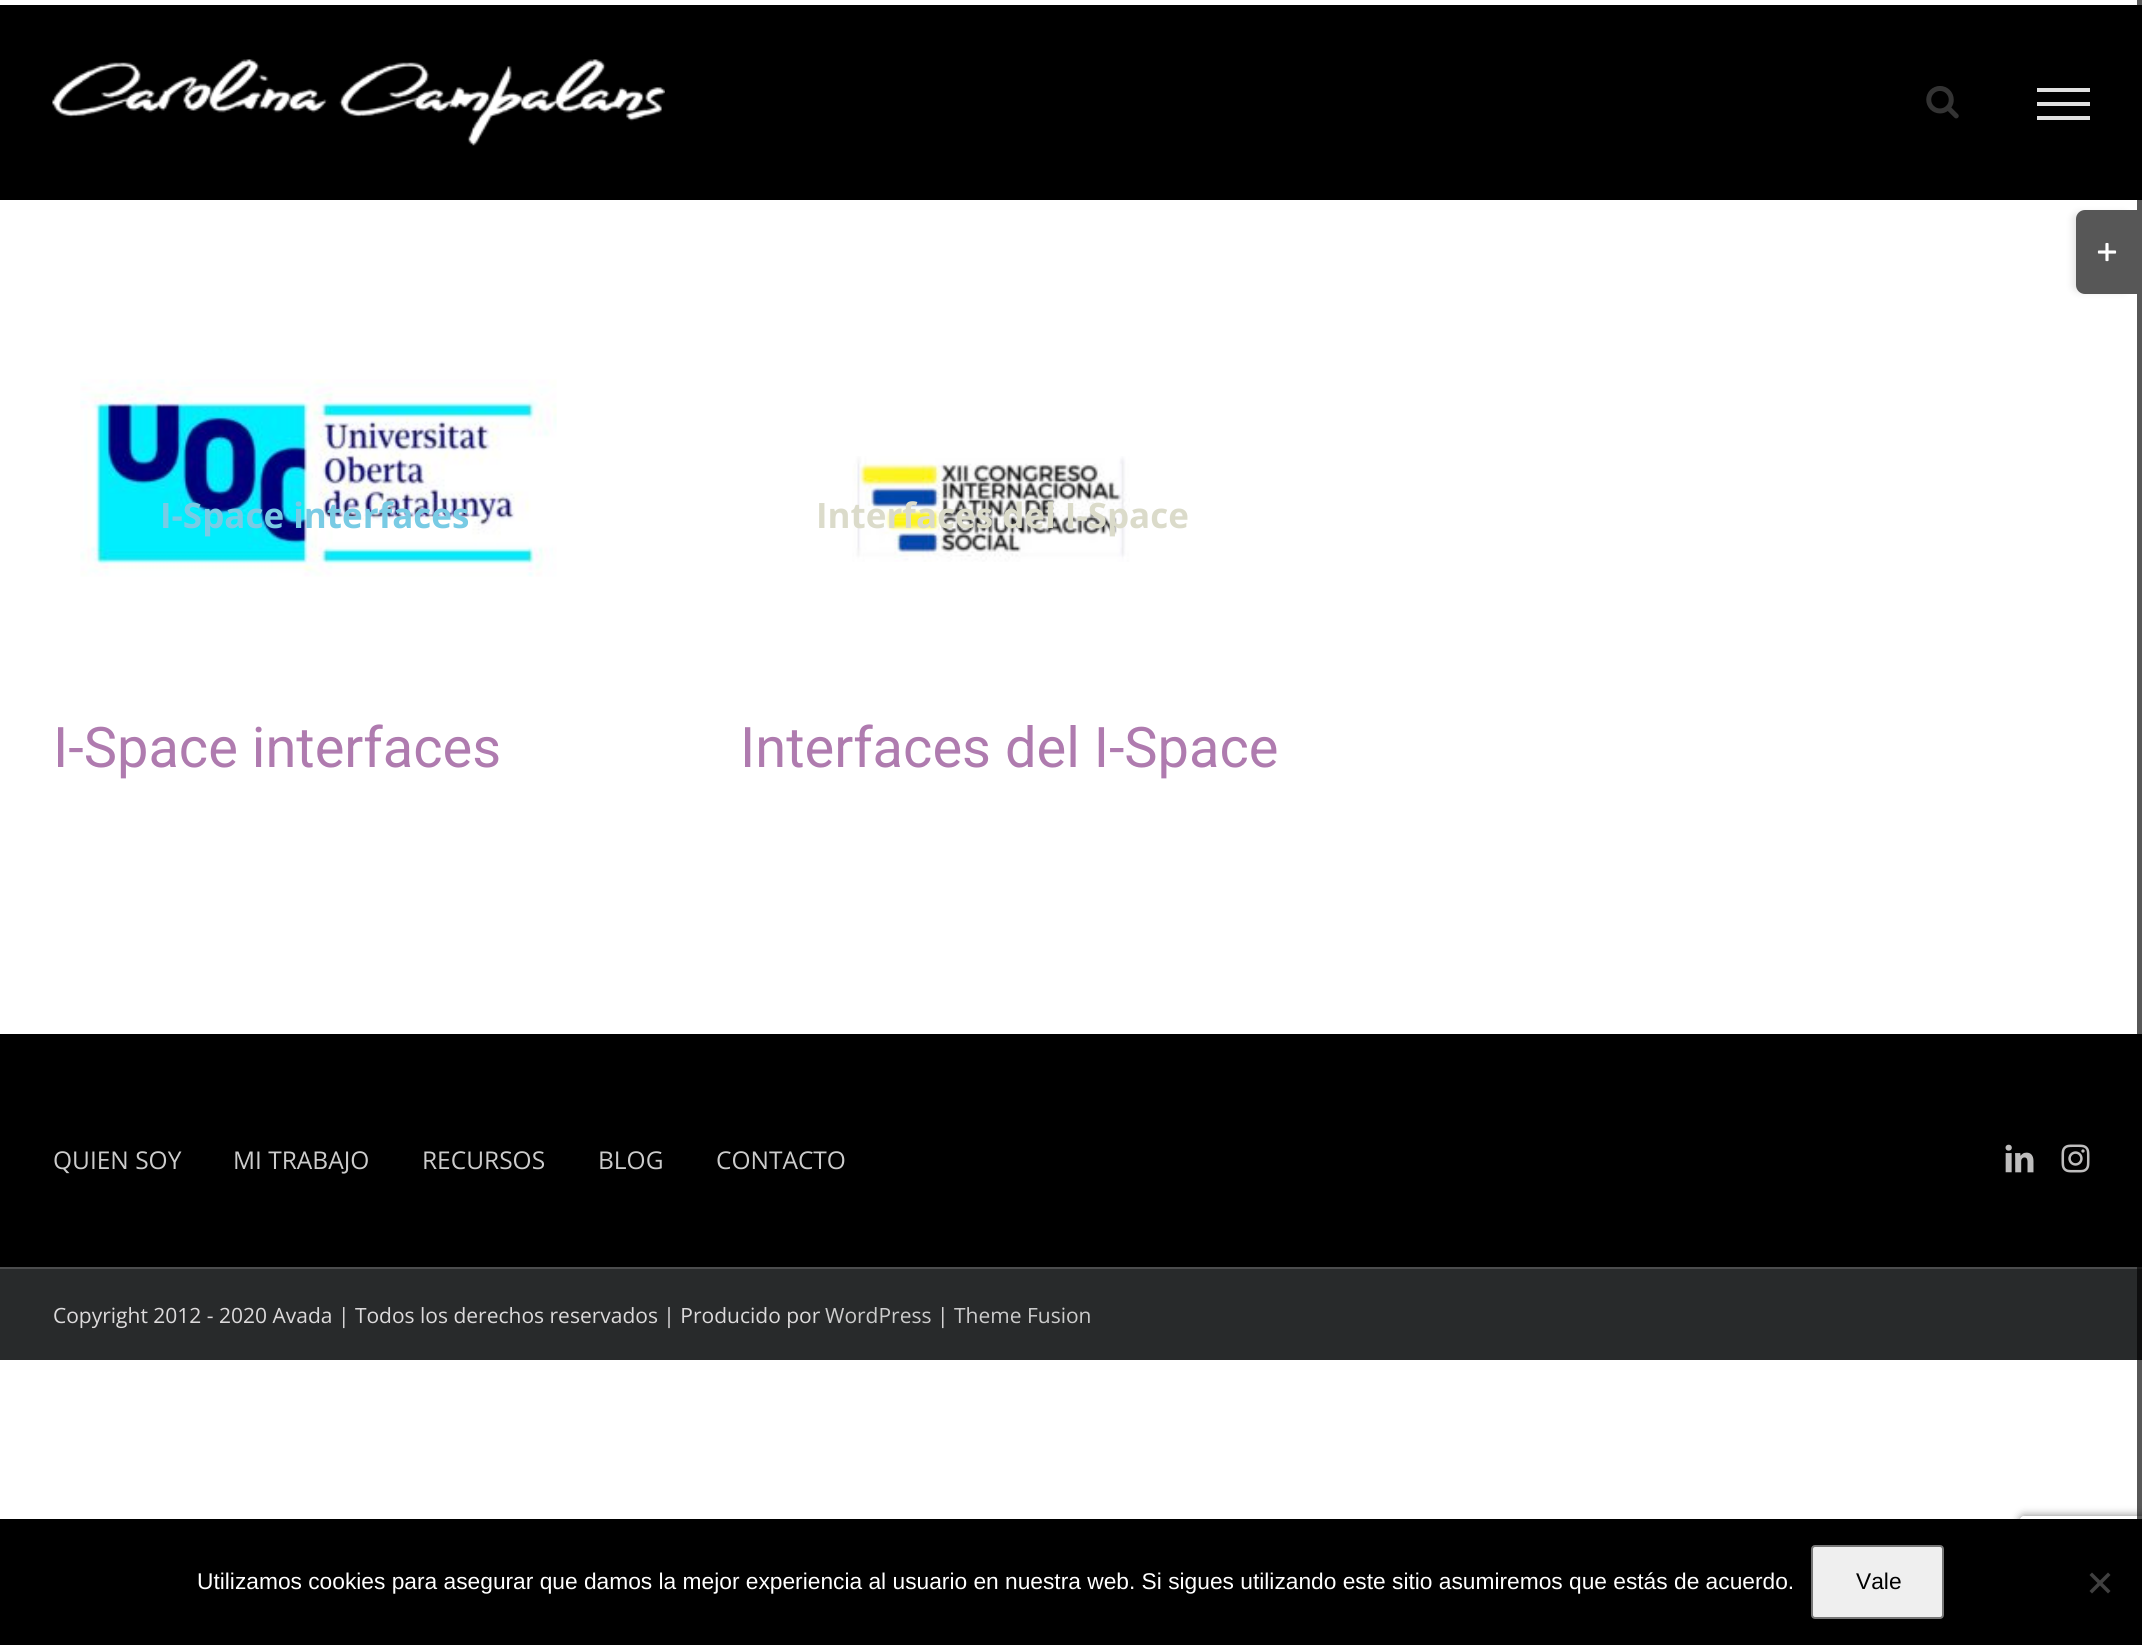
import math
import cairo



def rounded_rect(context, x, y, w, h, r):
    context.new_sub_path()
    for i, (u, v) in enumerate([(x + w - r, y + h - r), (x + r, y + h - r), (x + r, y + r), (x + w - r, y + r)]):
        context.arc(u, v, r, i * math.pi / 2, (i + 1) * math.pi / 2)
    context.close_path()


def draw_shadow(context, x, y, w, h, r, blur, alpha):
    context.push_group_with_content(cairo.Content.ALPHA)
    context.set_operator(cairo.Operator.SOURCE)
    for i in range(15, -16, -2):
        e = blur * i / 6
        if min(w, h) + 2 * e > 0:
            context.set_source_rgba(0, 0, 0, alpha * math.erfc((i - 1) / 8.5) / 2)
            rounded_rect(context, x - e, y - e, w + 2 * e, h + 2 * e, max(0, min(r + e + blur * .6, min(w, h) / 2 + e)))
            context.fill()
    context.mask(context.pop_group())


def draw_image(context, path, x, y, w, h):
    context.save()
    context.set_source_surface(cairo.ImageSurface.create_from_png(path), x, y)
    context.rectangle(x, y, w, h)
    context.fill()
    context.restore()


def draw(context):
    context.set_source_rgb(1, 1, 1)
    context.paint()
    context.set_source_rgb(0, 0, 0)
    context.rectangle(0, 5, 2142, 195)
    context.fill()
    context.set_source_rgb(0, 0, 0)
    draw_shadow(context, 2074, 214, 54, 77, 5, 4.5, 0.14)
    context.set_source_rgb(0, 0, 0)
    context.rectangle(0, 1034, 2142, 233)
    context.fill()
    context.set_source_rgb(40 / 255, 42 / 255, 43 / 255)
    context.rectangle(0, 1269, 2142, 91)
    context.fill()
    context.set_source_rgb(75 / 255, 76 / 255, 77 / 255)
    context.rectangle(0, 1267, 2142, 2)
    context.fill()
    context.save()
    context.set_fill_rule(cairo.FillRule.EVEN_ODD)
    context.new_path()
    context.move_to(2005, 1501)
    context.line_to(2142, 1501)
    context.line_to(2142, 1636)
    context.line_to(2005, 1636)
    context.close_path()
    context.move_to(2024, 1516)
    context.line_to(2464, 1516)
    context.curve_to(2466, 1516, 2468, 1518, 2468, 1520)
    context.line_to(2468, 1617)
    context.curve_to(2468, 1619, 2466, 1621, 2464, 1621)
    context.line_to(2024, 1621)
    context.curve_to(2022, 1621, 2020, 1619, 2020, 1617)
    context.line_to(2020, 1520)
    context.curve_to(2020, 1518, 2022, 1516, 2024, 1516)
    context.close_path()
    context.clip()
    context.set_source_rgb(128 / 255, 128 / 255, 128 / 255)
    draw_shadow(context, 2020, 1516, 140, 105, 4, 4.5, 1)
    context.restore()
    context.set_source_rgba(0, 0, 0, 0.66)
    context.rectangle(2137, 0, 5, 1519)
    context.fill()
    context.set_source_rgb(87 / 255, 87 / 255, 87 / 255)
    context.new_path()
    context.move_to(2085, 210)
    context.line_to(2137, 210)
    context.line_to(2137, 294)
    context.line_to(2085, 294)
    context.curve_to(2080, 294, 2076, 290, 2076, 285)
    context.line_to(2076, 219)
    context.curve_to(2076, 214, 2080, 210, 2085, 210)
    context.close_path()
    context.fill()
    draw_image(context, "images/1.png", 2097, 242, 20, 20)
    draw_image(context, "images/2.png", 52, 59, 613, 87)
    draw_image(context, "images/3.png", 1926, 86, 33, 33)
    context.set_source_rgb(224 / 255, 224 / 255, 224 / 255)
    context.rectangle(2037, 88, 53, 4)
    context.fill()
    context.rectangle(2037, 102, 53, 4)
    context.fill()
    context.rectangle(2037, 116, 53, 4)
    context.fill()
    draw_image(context, "images/4.png", 80, 379, 477, 198)
    draw_image(context, "images/5.png", 852, 456, 278, 106)
    draw_image(context, "images/6.png", 2005, 1144, 29, 29)
    draw_image(context, "images/7.png", 2061, 1144, 29, 29)
    context.set_source_rgb(0, 0, 0)
    context.rectangle(0, 1519, 2142, 126)
    context.fill()
    context.set_source_rgb(239 / 255, 239 / 255, 239 / 255)
    rounded_rect(context, 1812, 1546, 131, 72, 3)
    context.fill_preserve()
    context.set_source_rgb(118 / 255, 118 / 255, 118 / 255)
    context.stroke()
    context.set_source_rgb(64 / 255, 64 / 255, 64 / 255)
    context.new_path()
    context.move_to(2108, 1572.5)
    context.line_to(2110.5, 1575)
    context.line_to(2092, 1593.5)
    context.line_to(2089.5, 1591)
    context.close_path()
    context.fill()
    context.new_path()
    context.move_to(2089.5, 1575)
    context.line_to(2092, 1572.5)
    context.line_to(2110.5, 1591)
    context.line_to(2108, 1593.5)
    context.close_path()
    context.fill()
    context.select_font_face("Open Sans", cairo.FontSlant.NORMAL, cairo.FontWeight.BOLD)
    context.set_font_size(35)
    context.set_source_rgb(121 / 255, 203 / 255, 228 / 255)
    context.move_to(160, 528)
    context.show_text("I-Space interfaces")
    context.select_font_face("Roboto")
    context.set_font_size(56)
    context.set_source_rgb(175 / 255, 123 / 255, 175 / 255)
    context.move_to(53, 767)
    context.show_text("I-Space interfaces")
    context.select_font_face("Open Sans", cairo.FontSlant.NORMAL, cairo.FontWeight.BOLD)
    context.set_font_size(35)
    context.set_source_rgb(219 / 255, 219 / 255, 202 / 255)
    context.move_to(816, 528)
    context.show_text("Interfaces del I-Space")
    context.select_font_face("Roboto")
    context.set_font_size(56)
    context.set_source_rgb(175 / 255, 123 / 255, 175 / 255)
    context.move_to(740, 767)
    context.show_text("Interfaces del I-Space")
    context.select_font_face("Open Sans")
    context.set_font_size(24.5)
    context.set_source_rgb(204 / 255, 204 / 255, 204 / 255)
    context.move_to(53, 1169)
    context.show_text("QUIEN SOY")
    context.move_to(233, 1169)
    context.show_text("MI TRABAJO")
    context.move_to(422, 1169)
    context.show_text("RECURSOS")
    context.move_to(598, 1169)
    context.show_text("BLOG")
    context.move_to(716, 1169)
    context.show_text("CONTACTO")
    context.set_font_size(21)
    context.set_source_rgb(220 / 255, 218 / 255, 219 / 255)
    context.move_to(53, 1323)
    context.show_text("Copyright 2012 - 2020 Avada | Todos los derechos reservados | Producido por")
    context.set_source_rgb(204 / 255, 204 / 255, 204 / 255)
    context.move_to(825, 1323)
    context.show_text("WordPress")
    context.set_source_rgb(220 / 255, 218 / 255, 219 / 255)
    context.move_to(937, 1323)
    context.show_text("|")
    context.set_source_rgb(204 / 255, 204 / 255, 204 / 255)
    context.move_to(954, 1323)
    context.show_text("Theme Fusion")
    context.select_font_face("Liberation Sans")
    context.set_font_size(22.75)
    context.set_source_rgb(1, 1, 1)
    context.move_to(197, 1589)
    context.show_text("Utilizamos cookies para asegurar que damos la mejor experiencia al usuario en nuestra web. Si sigues utilizando este sitio asumiremos que estás de acuerdo.")
    context.set_source_rgb(0, 0, 0)
    context.move_to(1856, 1589)
    context.show_text("Vale")


surface = cairo.ImageSurface(cairo.Format.RGB24, 2142, 1645)
context = cairo.Context(surface)
options = cairo.FontOptions()
options.set_hint_metrics(cairo.HintMetrics.OFF)
options.set_hint_style(cairo.HintStyle.NONE)
context.set_font_options(options)
context.set_miter_limit(4)
draw(context)
surface.write_to_png("out.png")
